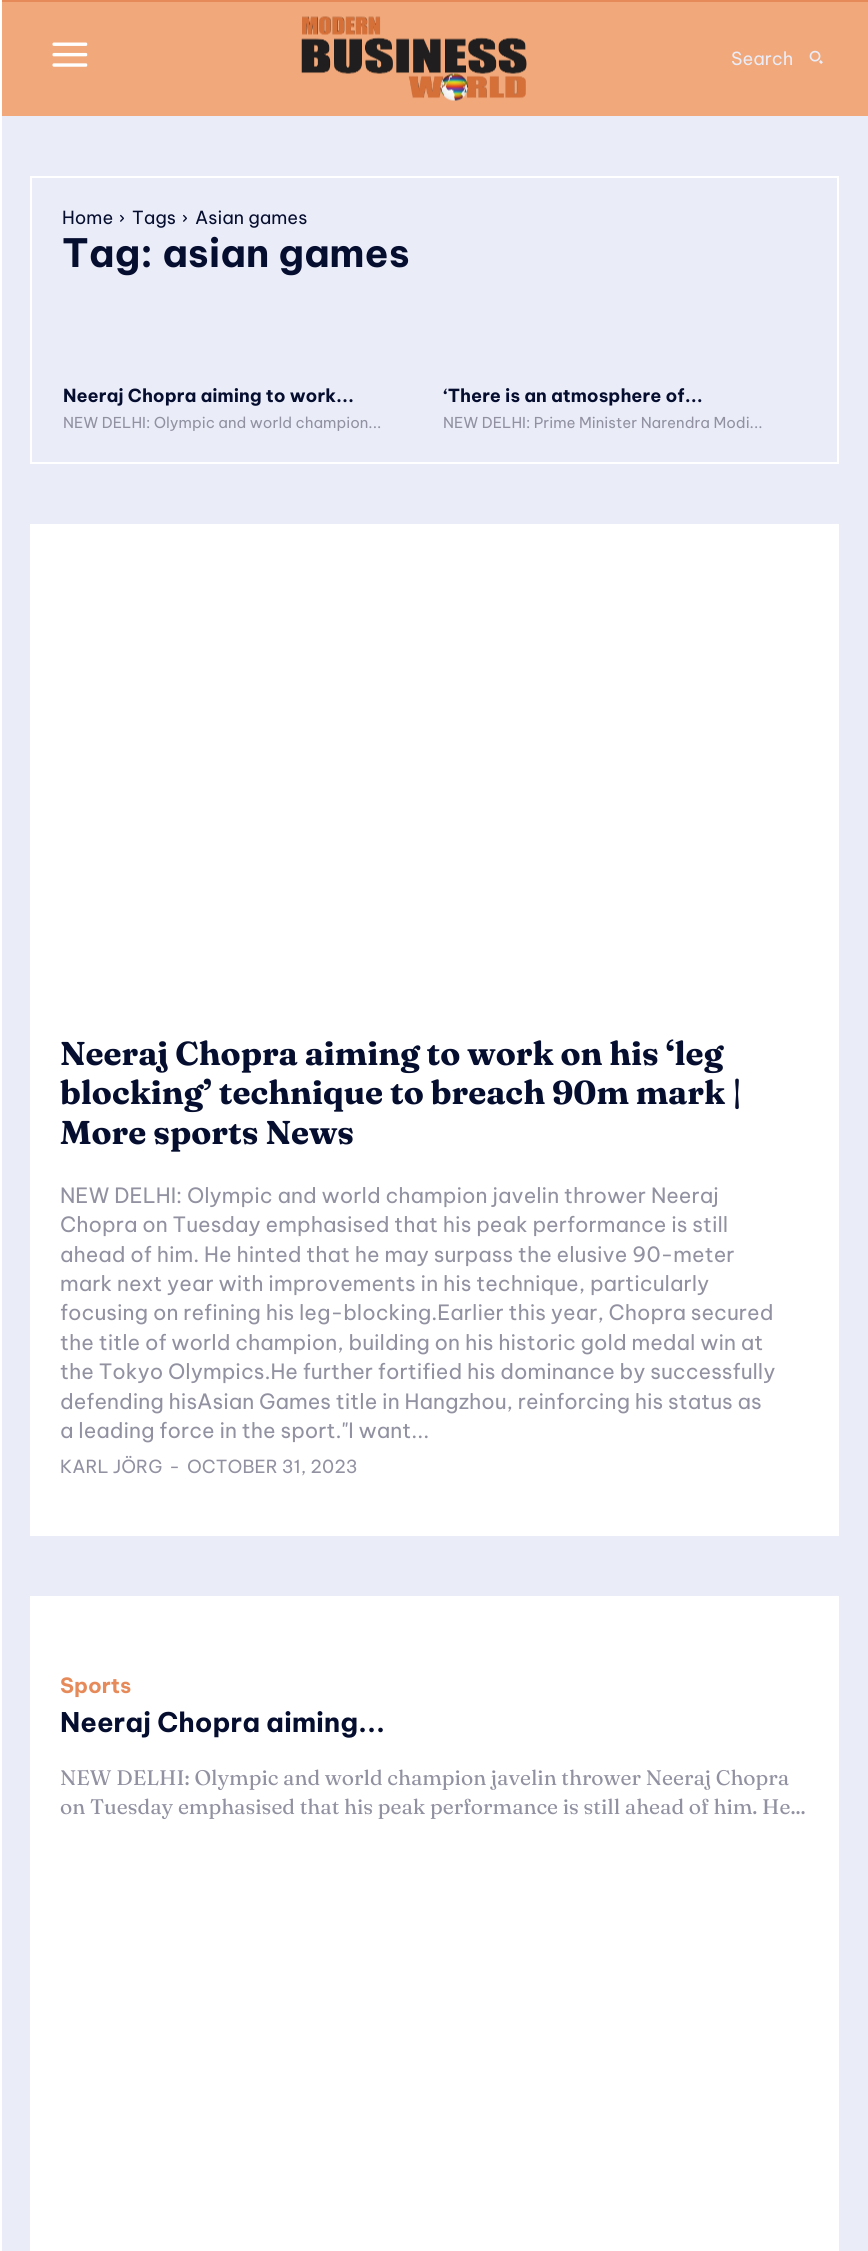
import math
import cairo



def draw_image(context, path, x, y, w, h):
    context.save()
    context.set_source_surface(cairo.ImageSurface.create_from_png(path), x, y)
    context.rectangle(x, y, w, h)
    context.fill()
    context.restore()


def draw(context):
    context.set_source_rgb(1, 1, 1)
    context.paint()
    context.set_source_rgb(230 / 255, 138 / 255, 90 / 255)
    context.rectangle(2, 0, 866, 2)
    context.fill()
    context.set_source_rgb(241 / 255, 168 / 255, 122 / 255)
    context.rectangle(2, 2, 866, 114)
    context.fill()
    draw_image(context, "images/1.png", 52, 42, 36, 25)
    draw_image(context, "images/2.png", 301, 16, 226, 85)
    draw_image(context, "images/3.png", 809, 50, 14, 14)
    context.set_source_rgb(234 / 255, 236 / 255, 248 / 255)
    context.rectangle(2, 116, 866, 2135)
    context.fill()
    context.rectangle(31, 177, 807, 286)
    context.set_source_rgb(1, 1, 1)
    context.stroke()
    draw_image(context, "images/4.png", 120, 214, 4, 8)
    draw_image(context, "images/4.png", 183, 214, 4, 8)
    context.rectangle(30, 524, 809, 1012)
    context.fill()
    context.rectangle(30, 1596, 809, 655)
    context.fill()
    context.select_font_face("Be Vietnam Pro")
    context.set_font_size(18)
    context.set_source_rgb(234 / 255, 236 / 255, 248 / 255)
    context.move_to(731, 65)
    context.show_text("Search")
    context.set_source_rgb(6 / 255, 14 / 255, 47 / 255)
    context.move_to(62, 224)
    context.show_text("Home")
    context.move_to(132, 224)
    context.show_text("Tags")
    context.move_to(195, 224)
    context.show_text("Asian games")
    context.select_font_face("Be Vietnam Pro", cairo.FontSlant.NORMAL, cairo.FontWeight.BOLD)
    context.set_font_size(39)
    context.move_to(62, 267)
    context.show_text("Tag: asian games")
    context.set_font_size(18)
    context.move_to(63, 402)
    context.show_text("Neeraj Chopra aiming to work...")
    context.select_font_face("Be Vietnam Pro")
    context.set_font_size(15)
    context.set_source_rgb(145 / 255, 145 / 255, 161 / 255)
    context.move_to(63, 428)
    context.show_text("NEW DELHI: Olympic and world champion...")
    context.select_font_face("Be Vietnam Pro", cairo.FontSlant.NORMAL, cairo.FontWeight.BOLD)
    context.set_font_size(18)
    context.set_source_rgb(6 / 255, 14 / 255, 47 / 255)
    context.move_to(443, 402)
    context.show_text("‘There is an atmosphere of...")
    context.select_font_face("Be Vietnam Pro")
    context.set_font_size(15)
    context.set_source_rgb(145 / 255, 145 / 255, 161 / 255)
    context.move_to(443, 428)
    context.show_text("NEW DELHI: Prime Minister Narendra Modi...")
    context.select_font_face("Fraunces", cairo.FontSlant.NORMAL, cairo.FontWeight.BOLD)
    context.set_font_size(33)
    context.set_source_rgb(6 / 255, 14 / 255, 47 / 255)
    context.move_to(60, 1065)
    context.show_text("Neeraj Chopra aiming to work on his ‘leg")
    context.move_to(60, 1104)
    context.show_text("blocking’ technique to breach 90m mark |")
    context.move_to(60, 1144)
    context.show_text("More sports News")
    context.select_font_face("Be Vietnam Pro")
    context.set_font_size(21)
    context.set_source_rgb(145 / 255, 145 / 255, 161 / 255)
    context.move_to(60, 1203)
    context.show_text("NEW DELHI: Olympic and world champion javelin thrower Neeraj")
    context.move_to(60, 1232)
    context.show_text("Chopra on Tuesday emphasised that his peak performance is still")
    context.move_to(60, 1262)
    context.show_text("ahead of him. He hinted that he may surpass the elusive 90-meter")
    context.move_to(60, 1291)
    context.show_text("mark next year with improvements in his technique, particularly")
    context.move_to(60, 1320)
    context.show_text("focusing on refining his leg-blocking.Earlier this year, Chopra secured")
    context.move_to(60, 1350)
    context.show_text("the title of world champion, building on his historic gold medal win at")
    context.move_to(60, 1379)
    context.show_text("the Tokyo Olympics.He further fortified his dominance by successfully")
    context.move_to(60, 1409)
    context.show_text("defending hisAsian Games title in Hangzhou, reinforcing his status as")
    context.move_to(60, 1438)
    context.show_text("a leading force in the sport.\"I want...")
    context.set_font_size(18)
    context.move_to(60, 1473)
    context.show_text("KARL JÖRG")
    context.move_to(169, 1473)
    context.show_text("-")
    context.move_to(187, 1473)
    context.show_text("OCTOBER 31, 2023")
    context.select_font_face("Be Vietnam Pro", cairo.FontSlant.NORMAL, cairo.FontWeight.BOLD)
    context.set_font_size(21)
    context.set_source_rgb(230 / 255, 138 / 255, 90 / 255)
    context.move_to(60, 1693)
    context.show_text("Sports")
    context.set_font_size(27)
    context.set_source_rgb(6 / 255, 14 / 255, 47 / 255)
    context.move_to(60, 1732)
    context.show_text("Neeraj Chopra aiming...")
    context.select_font_face("Fraunces")
    context.set_font_size(21)
    context.set_source_rgb(145 / 255, 145 / 255, 161 / 255)
    context.move_to(60, 1785)
    context.show_text("NEW DELHI: Olympic and world champion javelin thrower Neeraj Chopra")
    context.move_to(60, 1814)
    context.show_text("on Tuesday emphasised that his peak performance is still ahead of him. He...")


surface = cairo.ImageSurface(cairo.Format.RGB24, 868, 2251)
context = cairo.Context(surface)
options = cairo.FontOptions()
options.set_hint_metrics(cairo.HintMetrics.OFF)
options.set_hint_style(cairo.HintStyle.NONE)
context.set_font_options(options)
context.set_miter_limit(4)
draw(context)
surface.write_to_png("out.png")
